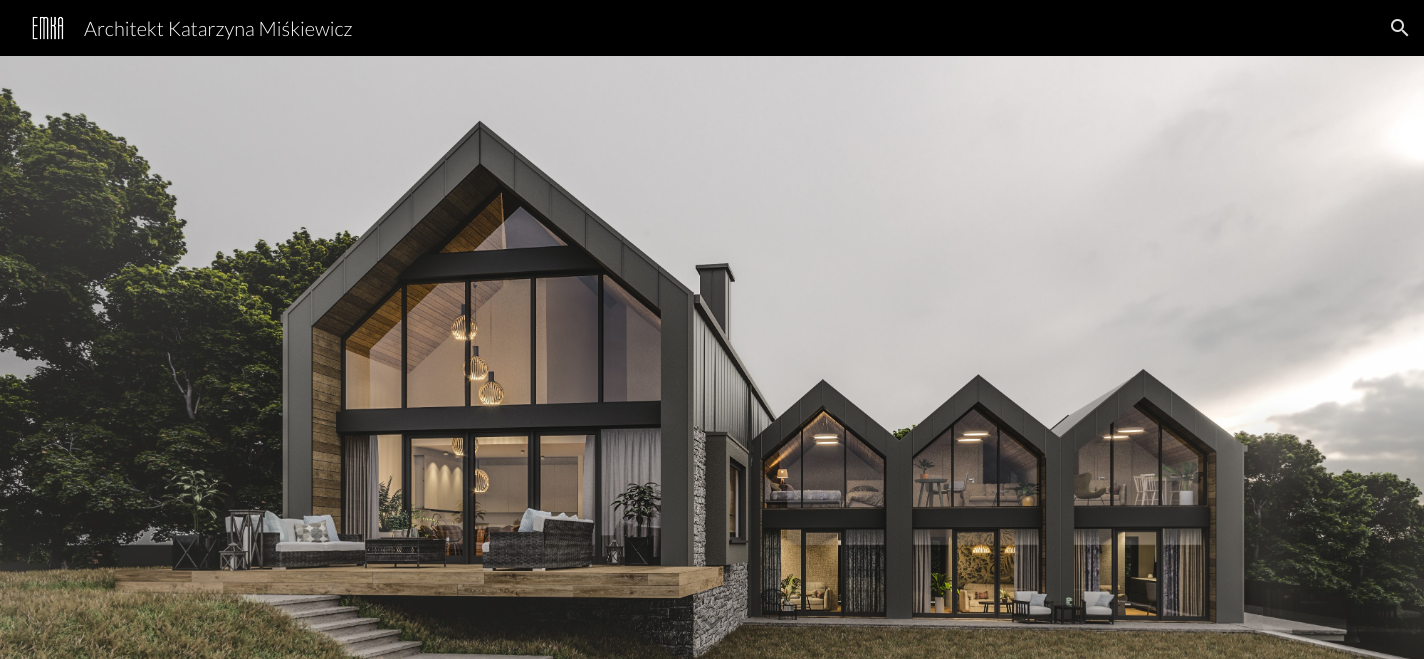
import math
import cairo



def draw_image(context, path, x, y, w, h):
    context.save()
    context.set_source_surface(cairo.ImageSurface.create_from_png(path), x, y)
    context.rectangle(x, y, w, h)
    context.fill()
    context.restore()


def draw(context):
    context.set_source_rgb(1, 1, 1)
    context.paint()
    context.set_source_rgb(0, 0, 0)
    context.rectangle(0, 0, 1424, 56)
    context.fill()
    draw_image(context, "images/1.png", 32, 16, 32, 24)
    draw_image(context, "images/2.png", 1391, 19, 18, 18)
    draw_image(context, "images/3.png", 0, 56, 1424, 603)
    context.set_source_rgba(33 / 255, 33 / 255, 33 / 255, 0.4)
    context.new_path()
    context.move_to(703, 614.5)
    context.line_to(712, 624)
    context.line_to(721, 614.5)
    context.line_to(724, 617.5)
    context.line_to(712, 629.5)
    context.line_to(700, 617.5)
    context.close_path()
    context.fill()
    context.select_font_face("Lato Light")
    context.set_font_size(20)
    context.set_source_rgb(1, 1, 1)
    context.move_to(84, 36)
    context.show_text("Architekt Katarzyna Miśkiewicz")


surface = cairo.ImageSurface(cairo.Format.RGB24, 1424, 659)
context = cairo.Context(surface)
options = cairo.FontOptions()
options.set_hint_metrics(cairo.HintMetrics.OFF)
options.set_hint_style(cairo.HintStyle.NONE)
context.set_font_options(options)
context.set_miter_limit(4)
draw(context)
surface.write_to_png("out.png")
